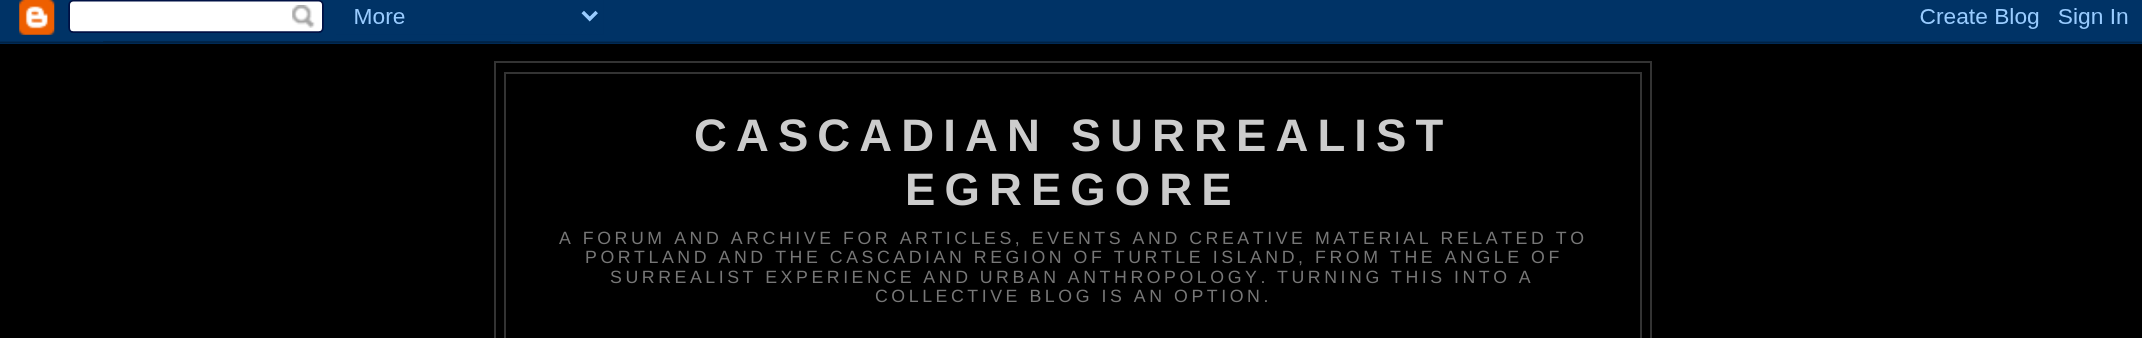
import math
import cairo



def draw_spaced(context, x, y, s, letter, word):
    context.move_to(x, y)
    for ch in s:
        context.show_text(ch)
        context.rel_move_to(letter + word * (ch == ' '), 0)


def draw_image(context, path, x, y, w, h):
    context.save()
    context.set_source_surface(cairo.ImageSurface.create_from_png(path), x, y)
    context.rectangle(x, y, w, h)
    context.fill()
    context.restore()


def draw(context):
    context.set_source_rgb(0, 0, 0)
    context.paint()
    draw_image(context, "images/1.png", 0, 0, 2142, 44)
    context.rectangle(495, 62, 1156, 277)
    context.set_source_rgb(51 / 255, 51 / 255, 51 / 255)
    context.stroke()
    context.rectangle(505, 73, 1136, 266)
    context.stroke()
    context.select_font_face("Liberation Sans", cairo.FontSlant.NORMAL, cairo.FontWeight.BOLD)
    context.set_font_size(45.5)
    context.set_source_rgb(204 / 255, 204 / 255, 204 / 255)
    draw_spaced(context, 694, 151, "CASCADIAN SURREALIST", 9.1, 0)
    draw_spaced(context, 905, 205, "EGREGORE", 9.1, 0)
    context.select_font_face("Liberation Sans")
    context.set_font_size(17.75)
    context.set_source_rgb(119 / 255, 119 / 255, 119 / 255)
    draw_spaced(context, 559, 244, "A FORUM AND ARCHIVE FOR ARTICLES, EVENTS AND CREATIVE MATERIAL RELATED TO", 3.55, 0)
    draw_spaced(context, 585, 263, "PORTLAND AND THE CASCADIAN REGION OF TURTLE ISLAND, FROM THE ANGLE OF", 3.55, 0)
    draw_spaced(context, 610, 283, "SURREALIST EXPERIENCE AND URBAN ANTHROPOLOGY. TURNING THIS INTO A", 3.55, -0.25)
    draw_spaced(context, 875, 302, "COLLECTIVE BLOG IS AN OPTION.", 3.55, 0)


surface = cairo.ImageSurface(cairo.Format.RGB24, 2142, 338)
context = cairo.Context(surface)
options = cairo.FontOptions()
options.set_hint_metrics(cairo.HintMetrics.OFF)
options.set_hint_style(cairo.HintStyle.NONE)
context.set_font_options(options)
context.set_miter_limit(4)
draw(context)
surface.write_to_png("out.png")
